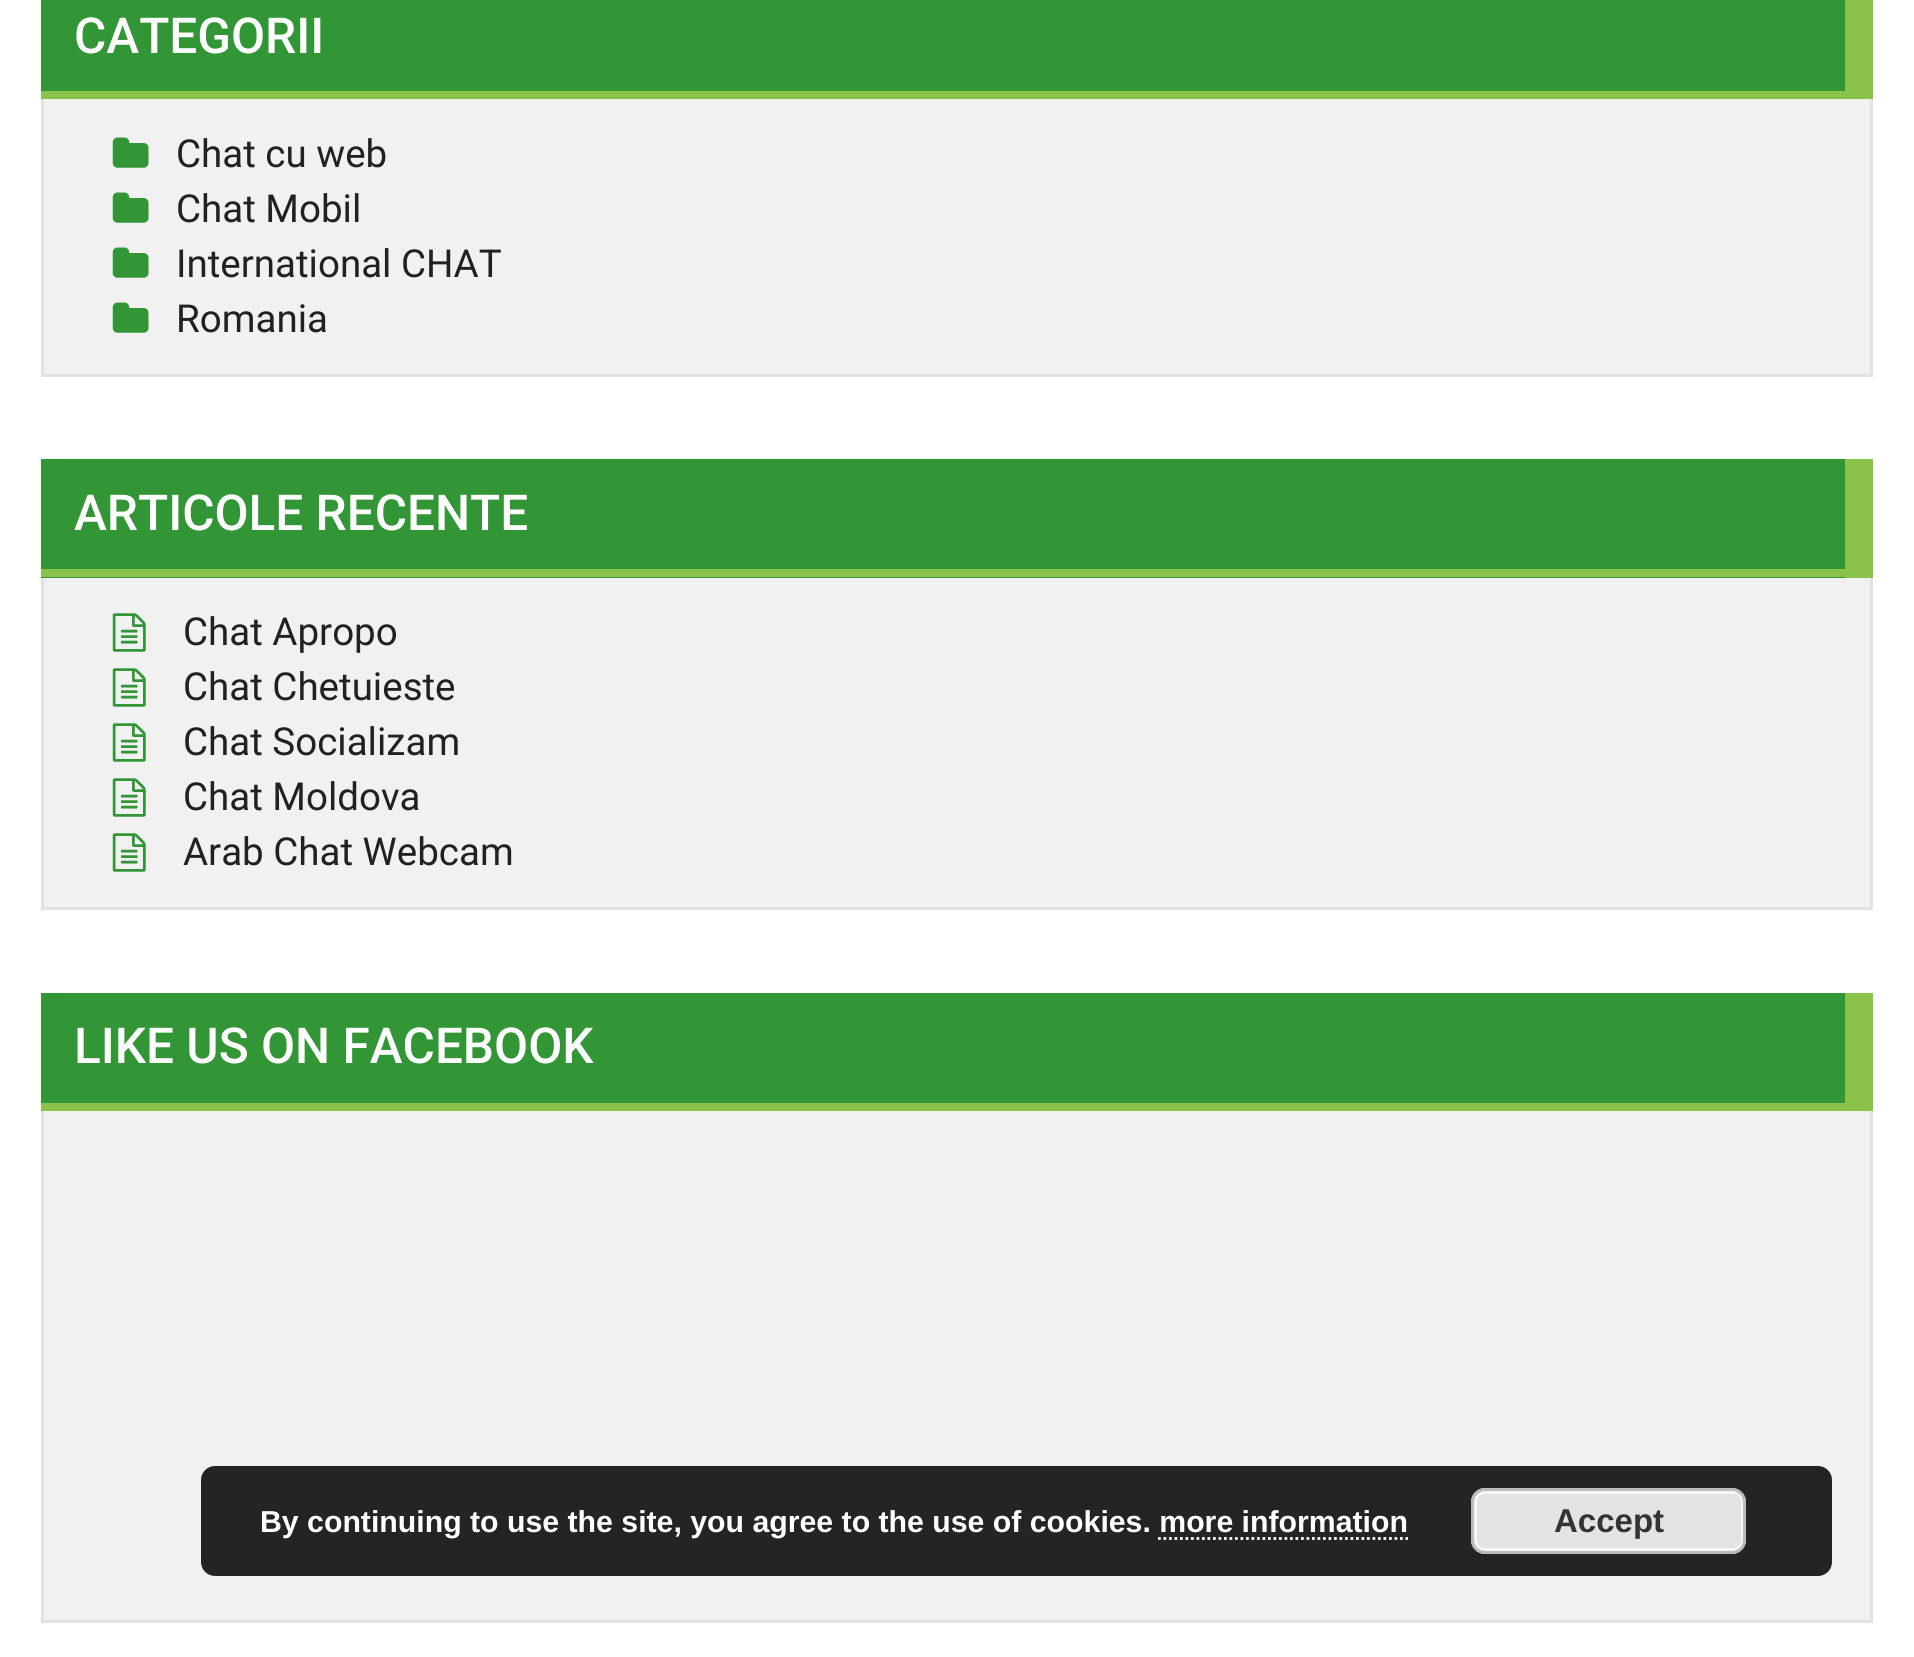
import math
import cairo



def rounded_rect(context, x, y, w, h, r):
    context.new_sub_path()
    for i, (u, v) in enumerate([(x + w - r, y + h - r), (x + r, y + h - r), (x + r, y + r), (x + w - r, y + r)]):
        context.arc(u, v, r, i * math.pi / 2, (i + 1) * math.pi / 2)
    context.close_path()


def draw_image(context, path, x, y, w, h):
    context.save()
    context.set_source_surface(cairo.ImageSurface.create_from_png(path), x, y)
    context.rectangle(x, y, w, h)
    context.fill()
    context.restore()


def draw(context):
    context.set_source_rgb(1, 1, 1)
    context.paint()
    context.set_source_rgb(241 / 255, 241 / 255, 241 / 255)
    context.rectangle(44, 99, 1826, 275)
    context.fill()
    context.rectangle(42.5, -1.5, 1829, 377)
    context.set_source_rgb(226 / 255, 226 / 255, 226 / 255)
    context.set_line_width(3)
    context.stroke()
    context.set_source_rgb(50 / 255, 150 / 255, 54 / 255)
    context.rectangle(41, 0, 1804, 91)
    context.fill()
    context.set_source_rgb(139 / 255, 195 / 255, 74 / 255)
    context.rectangle(1845, 0, 28, 91)
    context.fill()
    context.rectangle(41, 91, 1832, 8)
    context.fill()
    draw_image(context, "images/1.png", 112, 137, 37, 31)
    draw_image(context, "images/1.png", 112, 192, 37, 31)
    draw_image(context, "images/1.png", 112, 247, 37, 31)
    draw_image(context, "images/1.png", 112, 302, 37, 31)
    context.set_source_rgb(241 / 255, 241 / 255, 241 / 255)
    context.rectangle(44, 578, 1826, 329)
    context.fill()
    context.rectangle(42.5, 460.5, 1829, 448)
    context.set_source_rgb(226 / 255, 226 / 255, 226 / 255)
    context.stroke()
    context.set_source_rgb(50 / 255, 150 / 255, 54 / 255)
    context.rectangle(41, 459, 1804, 119)
    context.fill()
    context.set_source_rgb(139 / 255, 195 / 255, 74 / 255)
    context.rectangle(1845, 459, 28, 119)
    context.fill()
    context.rectangle(41, 569, 1804, 8)
    context.fill()
    draw_image(context, "images/2.png", 112, 613, 34, 39)
    draw_image(context, "images/2.png", 112, 668, 34, 39)
    draw_image(context, "images/2.png", 112, 723, 34, 39)
    draw_image(context, "images/2.png", 112, 778, 34, 39)
    draw_image(context, "images/2.png", 112, 833, 34, 39)
    context.set_source_rgb(241 / 255, 241 / 255, 241 / 255)
    context.rectangle(44, 1111, 1826, 509)
    context.fill()
    context.rectangle(42.5, 994.5, 1829, 627)
    context.set_source_rgb(226 / 255, 226 / 255, 226 / 255)
    context.stroke()
    context.set_source_rgb(50 / 255, 150 / 255, 54 / 255)
    context.rectangle(41, 993, 1804, 110)
    context.fill()
    context.set_source_rgb(139 / 255, 195 / 255, 74 / 255)
    context.rectangle(1845, 993, 28, 110)
    context.fill()
    context.rectangle(41, 1103, 1832, 8)
    context.fill()
    context.set_source_rgb(36 / 255, 36 / 255, 36 / 255)
    rounded_rect(context, 201, 1466, 1631, 110, 14)
    context.fill()
    context.set_source_rgb(227 / 255, 227 / 255, 227 / 255)
    rounded_rect(context, 1471, 1488, 275, 66, 14)
    context.fill()
    rounded_rect(context, 1475.5, 1492.5, 267, 57, 9.5)
    context.set_source_rgb(246 / 255, 246 / 255, 246 / 255)
    context.stroke()
    rounded_rect(context, 1472.5, 1489.5, 272, 63, 12.5)
    context.set_source_rgb(187 / 255, 187 / 255, 187 / 255)
    context.stroke()
    context.new_path()
    context.move_to(1158, 1538.5)
    context.line_to(1408, 1538.5)
    context.set_source_rgb(1, 1, 1)
    context.set_line_width(2.8)
    context.set_dash([2.75, 2.75])
    context.stroke()
    context.select_font_face("Roboto Medium")
    context.set_font_size(49.5)
    context.move_to(74, 53)
    context.show_text("CATEGORII")
    context.select_font_face("Roboto")
    context.set_font_size(38.5)
    context.set_source_rgb(33 / 255, 33 / 255, 33 / 255)
    context.move_to(176, 167)
    context.show_text("Chat cu web")
    context.move_to(176, 222)
    context.show_text("Chat Mobil")
    context.move_to(176, 277)
    context.show_text("International CHAT")
    context.move_to(176, 332)
    context.show_text("Romania")
    context.select_font_face("Roboto Medium")
    context.set_font_size(49.5)
    context.set_source_rgb(1, 1, 1)
    context.move_to(74, 530)
    context.show_text("ARTICOLE RECENTE")
    context.select_font_face("Roboto")
    context.set_font_size(38.5)
    context.set_source_rgb(33 / 255, 33 / 255, 33 / 255)
    context.move_to(183, 645)
    context.show_text("Chat Apropo")
    context.move_to(183, 700)
    context.show_text("Chat Chetuieste")
    context.move_to(183, 755)
    context.show_text("Chat Socializam")
    context.move_to(183, 810)
    context.show_text("Chat Moldova")
    context.move_to(183, 865)
    context.show_text("Arab Chat Webcam")
    context.select_font_face("Roboto Medium")
    context.set_font_size(49.5)
    context.set_source_rgb(1, 1, 1)
    context.move_to(74, 1063)
    context.show_text("LIKE US ON FACEBOOK")
    context.select_font_face("Liberation Sans", cairo.FontSlant.NORMAL, cairo.FontWeight.BOLD)
    context.set_font_size(30.25)
    context.move_to(260, 1532)
    context.show_text("By continuing to use the site, you agree to the use of cookies. more information")
    context.set_font_size(33)
    context.set_source_rgb(51 / 255, 51 / 255, 51 / 255)
    context.move_to(1554, 1532)
    context.show_text("Accept")


surface = cairo.ImageSurface(cairo.Format.RGB24, 1914, 1657)
context = cairo.Context(surface)
options = cairo.FontOptions()
options.set_hint_metrics(cairo.HintMetrics.OFF)
options.set_hint_style(cairo.HintStyle.NONE)
context.set_font_options(options)
context.set_miter_limit(4)
draw(context)
surface.write_to_png("out.png")
